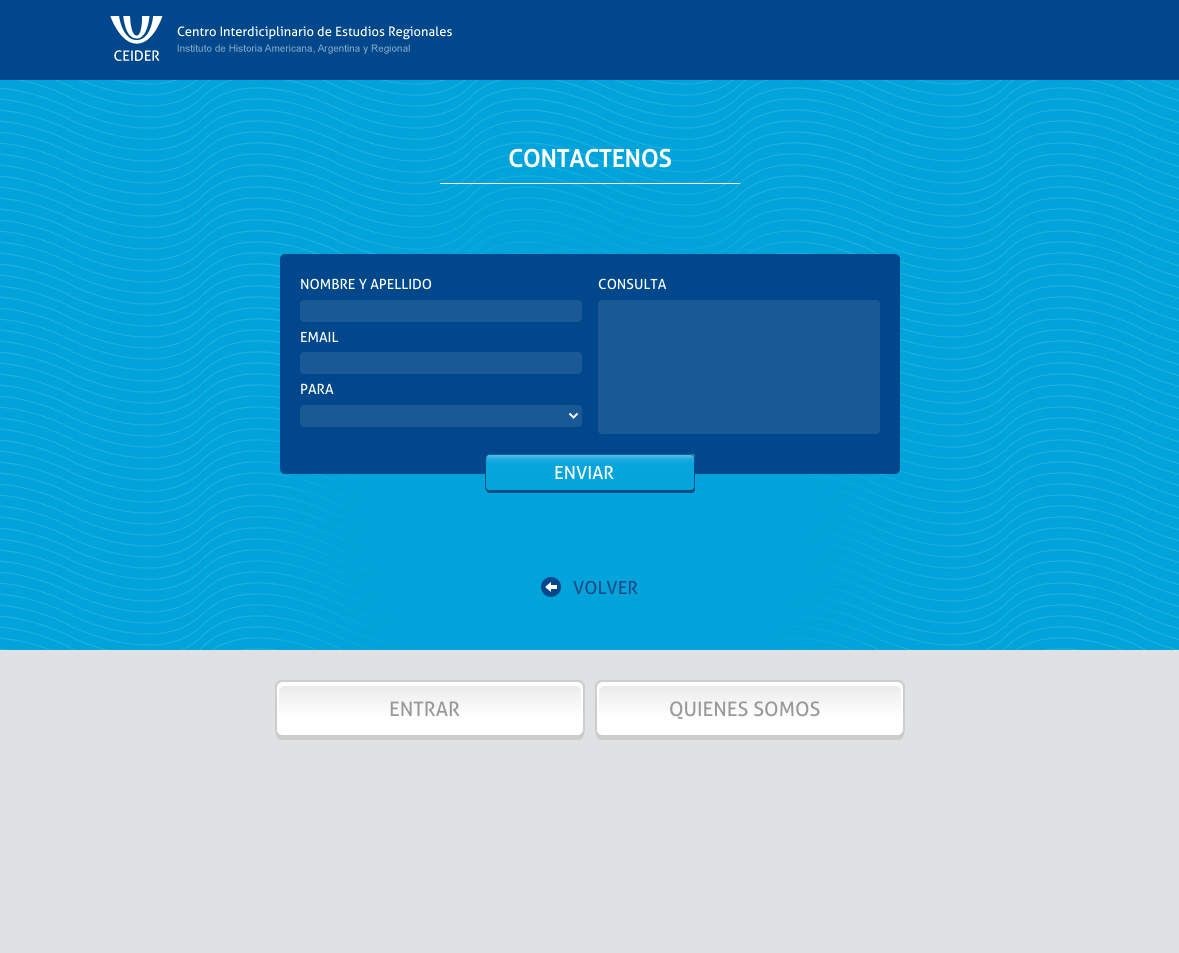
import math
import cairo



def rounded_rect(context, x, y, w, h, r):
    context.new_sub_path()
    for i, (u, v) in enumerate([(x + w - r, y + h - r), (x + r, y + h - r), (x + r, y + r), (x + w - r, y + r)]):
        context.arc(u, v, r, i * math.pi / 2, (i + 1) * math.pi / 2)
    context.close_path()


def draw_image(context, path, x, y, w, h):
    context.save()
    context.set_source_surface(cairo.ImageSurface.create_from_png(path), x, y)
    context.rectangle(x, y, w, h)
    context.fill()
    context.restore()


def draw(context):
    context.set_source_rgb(223 / 255, 225 / 255, 226 / 255)
    context.paint()
    context.set_source_rgb(0, 72 / 255, 139 / 255)
    context.rectangle(0, 0, 1179, 80)
    context.fill()
    draw_image(context, "images/1.png", 110, 16, 342, 45)
    context.set_source_rgb(0, 164 / 255, 218 / 255)
    context.rectangle(0, 80, 1179, 570)
    context.fill()
    draw_image(context, "images/2.png", 0, 80, 1179, 570)
    context.set_source_rgb(1, 1, 1)
    context.rectangle(440, 183, 300, 1)
    context.fill()
    context.set_source_rgb(0, 72 / 255, 139 / 255)
    rounded_rect(context, 280, 254, 620, 220, 5)
    context.fill()
    context.set_source_rgb(25 / 255, 90 / 255, 150 / 255)
    rounded_rect(context, 300, 300, 282, 22, 4)
    context.fill()
    rounded_rect(context, 300, 352, 282, 22, 4)
    context.fill()
    rounded_rect(context, 300, 405, 282, 22, 4)
    context.fill()
    context.new_path()
    context.move_to(569.5, 413.5)
    context.line_to(573.5, 417.5)
    context.line_to(577.5, 413.5)
    context.set_source_rgb(1, 1, 1)
    context.stroke()
    context.set_source_rgb(25 / 255, 90 / 255, 150 / 255)
    rounded_rect(context, 598, 300, 282, 134, 4)
    context.fill()
    draw_image(context, "images/3.png", 685, 454, 10, 39)
    draw_image(context, "images/4.png", 485, 454, 200, 39)
    draw_image(context, "images/5.png", 541, 577, 20, 20)
    draw_image(context, "images/6.png", 575, 680, 10, 60)
    draw_image(context, "images/7.png", 275, 680, 300, 60)
    draw_image(context, "images/6.png", 895, 680, 10, 60)
    draw_image(context, "images/7.png", 595, 680, 300, 60)
    context.select_font_face("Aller", cairo.FontSlant.NORMAL, cairo.FontWeight.BOLD)
    context.set_font_size(24)
    context.set_source_rgb(1, 1, 1)
    context.move_to(508, 167)
    context.show_text("CONTACTENOS")
    context.select_font_face("Aller")
    context.set_font_size(14)
    context.move_to(300, 289)
    context.show_text("NOMBRE Y APELLIDO")
    context.move_to(300, 342)
    context.show_text("EMAIL")
    context.move_to(300, 394)
    context.show_text("PARA")
    context.move_to(598, 289)
    context.show_text("CONSULTA")
    context.set_font_size(18)
    context.move_to(554, 479)
    context.show_text("ENVIAR")
    context.set_source_rgb(31 / 255, 74 / 255, 136 / 255)
    context.move_to(573, 594)
    context.show_text("VOLVER")
    context.set_font_size(20)
    context.set_source_rgb(153 / 255, 153 / 255, 153 / 255)
    context.move_to(389, 716)
    context.show_text("ENTRAR")
    context.move_to(669, 716)
    context.show_text("QUIENES SOMOS")


surface = cairo.ImageSurface(cairo.Format.RGB24, 1179, 953)
context = cairo.Context(surface)
options = cairo.FontOptions()
options.set_hint_metrics(cairo.HintMetrics.OFF)
options.set_hint_style(cairo.HintStyle.NONE)
context.set_font_options(options)
context.set_miter_limit(4)
draw(context)
surface.write_to_png("out.png")
